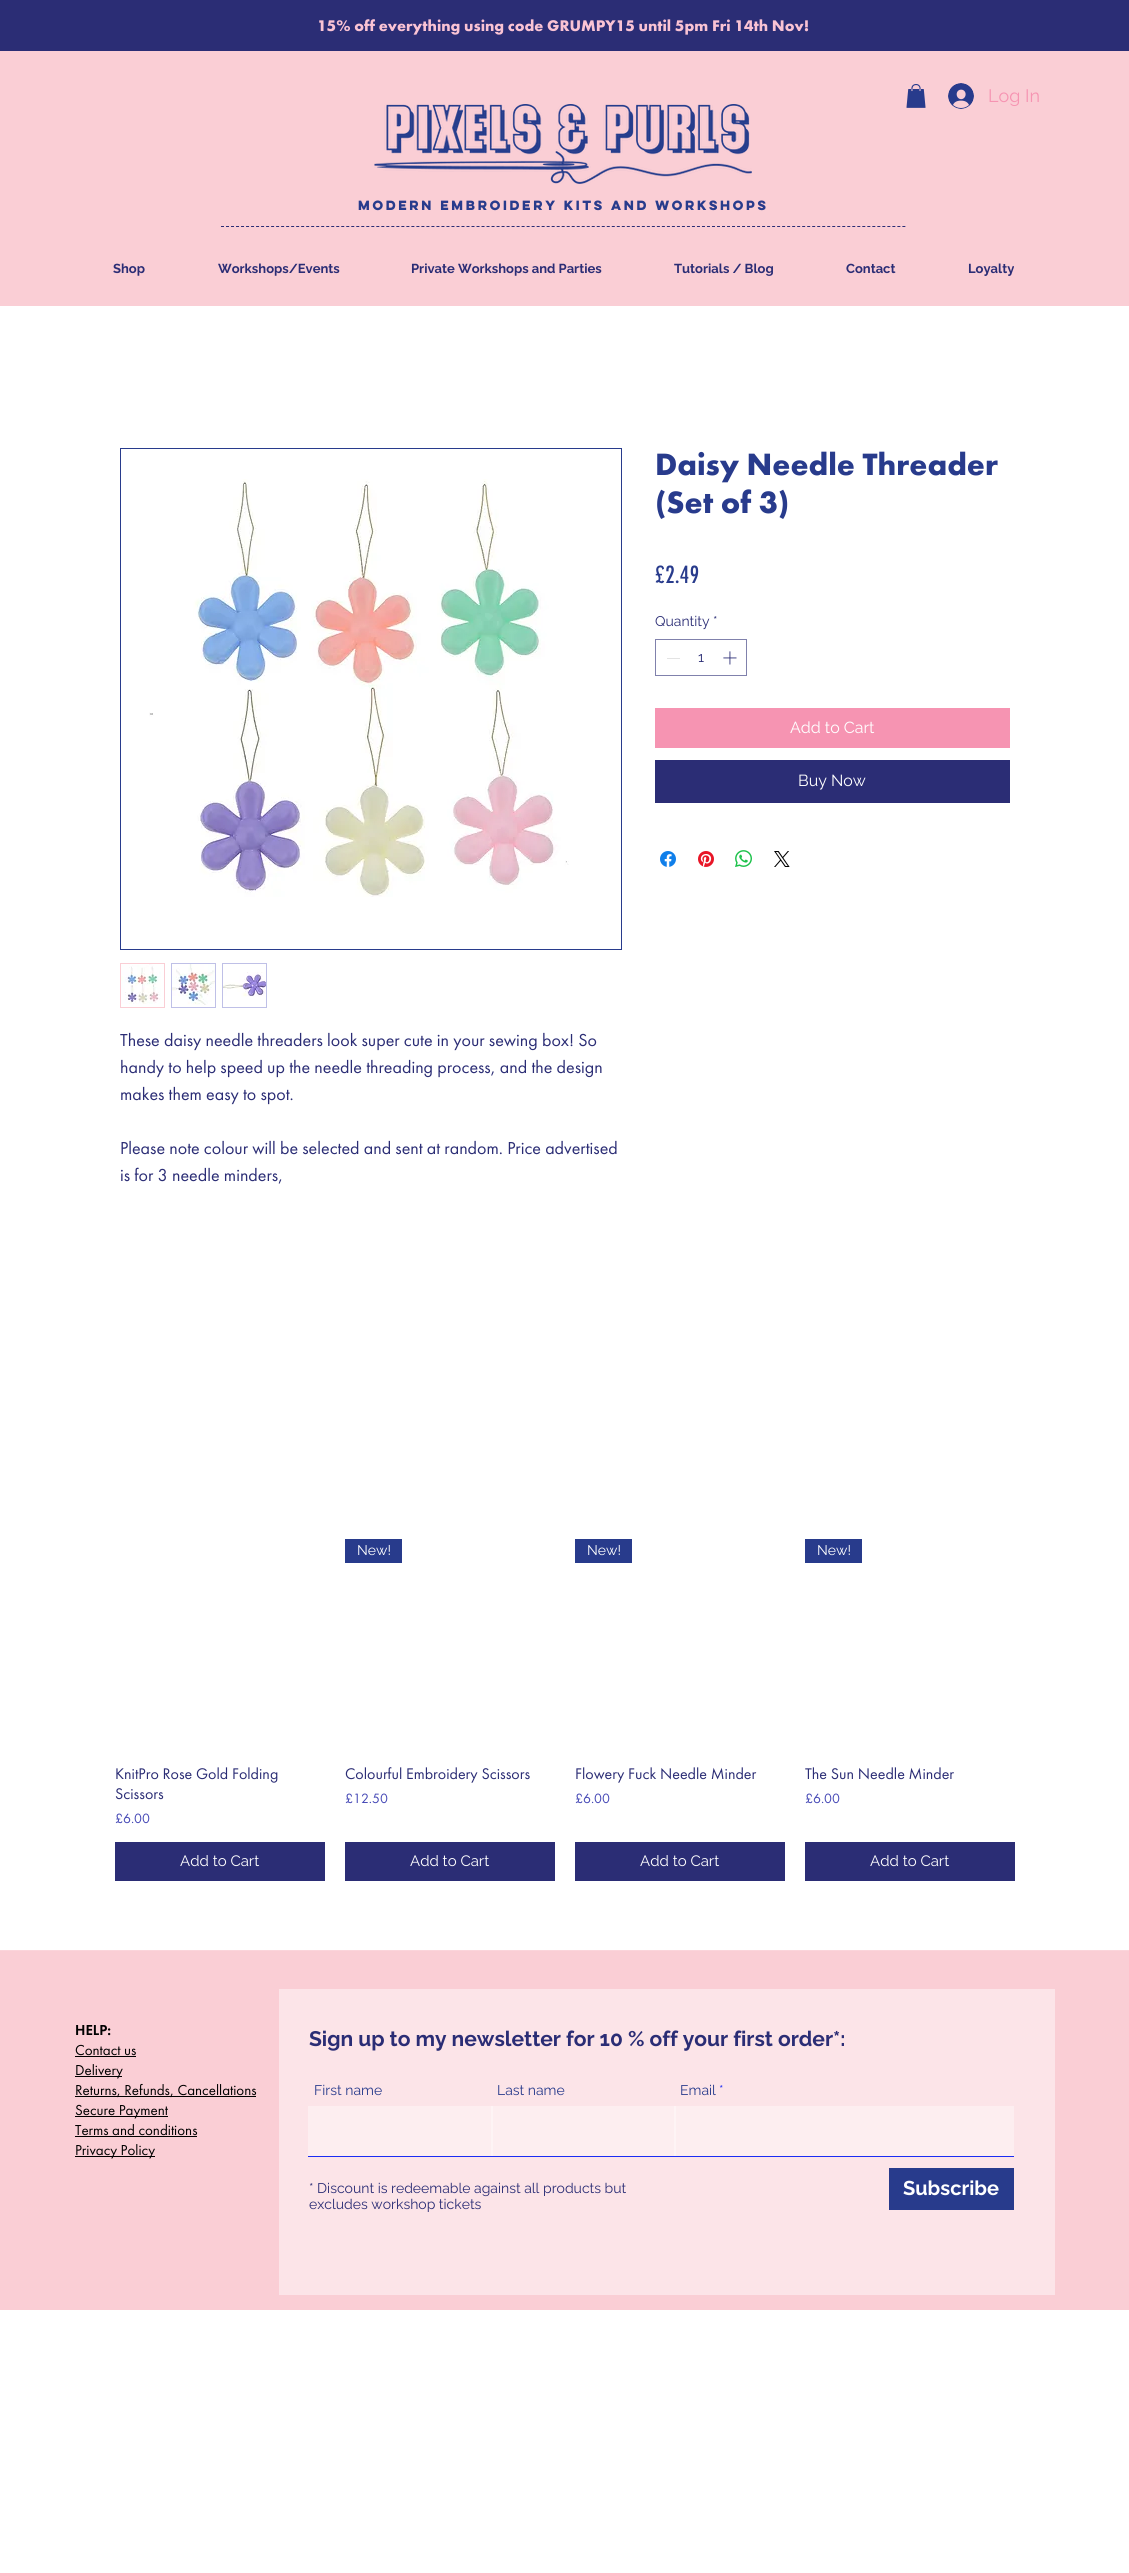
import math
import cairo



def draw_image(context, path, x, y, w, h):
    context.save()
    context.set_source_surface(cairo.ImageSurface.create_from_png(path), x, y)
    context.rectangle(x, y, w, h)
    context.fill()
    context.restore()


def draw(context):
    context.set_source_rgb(1, 1, 1)
    context.paint()
    context.set_source_rgb(43 / 255, 45 / 255, 117 / 255)
    context.rectangle(0, 0, 1129, 51)
    context.fill()
    context.set_source_rgb(250 / 255, 206 / 255, 213 / 255)
    context.rectangle(0, 51, 1129, 255)
    context.fill()
    draw_image(context, "images/1.png", 906, 84, 20, 24)
    draw_image(context, "images/2.png", 948, 83, 26, 26)
    draw_image(context, "images/3.png", 374, 104, 378, 80)
    context.new_path()
    context.move_to(221, 226.5)
    context.line_to(906, 226.5)
    context.set_source_rgb(43 / 255, 45 / 255, 117 / 255)
    context.set_line_width(1)
    context.set_dash([3, 2.01])
    context.stroke()
    context.rectangle(655.5, 639.5, 91, 36)
    context.set_source_rgb(128 / 255, 129 / 255, 172 / 255)
    context.set_dash([])
    context.stroke()
    context.set_source_rgb(227 / 255, 227 / 255, 227 / 255)
    context.rectangle(667, 658, 13, 1)
    context.fill()
    draw_image(context, "images/4.png", 723, 651, 14, 14)
    context.set_source_rgb(246 / 255, 148 / 255, 178 / 255)
    context.rectangle(655, 708, 355, 40)
    context.fill()
    context.set_source_rgb(43 / 255, 45 / 255, 117 / 255)
    context.rectangle(655, 760, 355, 43)
    context.fill()
    draw_image(context, "images/5.png", 660, 851, 16, 16)
    draw_image(context, "images/6.png", 698, 851, 16, 16)
    draw_image(context, "images/7.png", 735, 850, 17, 17)
    draw_image(context, "images/8.png", 774, 851, 16, 16)
    context.rectangle(120.5, 448.5, 501, 501)
    context.set_source_rgb(40 / 255, 59 / 255, 140 / 255)
    context.stroke()
    draw_image(context, "images/9.png", 149, 479, 420, 418)
    context.rectangle(120.5, 963.5, 44, 44)
    context.set_source_rgb(250 / 255, 206 / 255, 213 / 255)
    context.stroke()
    draw_image(context, "images/10.png", 121, 964, 40, 40)
    context.rectangle(171.5, 963.5, 44, 44)
    context.set_source_rgb(191 / 255, 192 / 255, 231 / 255)
    context.stroke()
    draw_image(context, "images/11.png", 172, 964, 43, 41)
    context.rectangle(222.5, 963.5, 44, 44)
    context.stroke()
    draw_image(context, "images/12.png", 223, 972, 43, 25)
    context.set_source_rgb(43 / 255, 45 / 255, 117 / 255)
    context.rectangle(115, 1842, 210, 39)
    context.fill()
    context.set_source_rgb(40 / 255, 59 / 255, 140 / 255)
    context.rectangle(345, 1539, 57, 24)
    context.fill()
    context.set_source_rgb(43 / 255, 45 / 255, 117 / 255)
    context.rectangle(345, 1842, 210, 39)
    context.fill()
    context.set_source_rgb(40 / 255, 59 / 255, 140 / 255)
    context.rectangle(575, 1539, 57, 24)
    context.fill()
    context.set_source_rgb(43 / 255, 45 / 255, 117 / 255)
    context.rectangle(575, 1842, 210, 39)
    context.fill()
    context.set_source_rgb(40 / 255, 59 / 255, 140 / 255)
    context.rectangle(805, 1539, 57, 24)
    context.fill()
    context.set_source_rgb(43 / 255, 45 / 255, 117 / 255)
    context.rectangle(805, 1842, 210, 39)
    context.fill()
    context.set_source_rgb(250 / 255, 206 / 255, 213 / 255)
    context.rectangle(0, 1951, 1129, 359)
    context.fill()
    context.set_source_rgb(251 / 255, 213 / 255, 219 / 255)
    context.rectangle(0, 1950, 1129, 1)
    context.fill()
    context.set_source_rgb(0, 0, 0)
    context.rectangle(75, 2056, 61, 1)
    context.fill()
    context.rectangle(75, 2076, 47, 1)
    context.fill()
    context.rectangle(75, 2096, 181, 1)
    context.fill()
    context.rectangle(75, 2116, 93, 1)
    context.fill()
    context.rectangle(75, 2136, 122, 1)
    context.fill()
    context.rectangle(75, 2156, 80, 1)
    context.fill()
    context.set_source_rgb(252 / 255, 228 / 255, 232 / 255)
    context.rectangle(279, 1989, 776, 306)
    context.fill()
    context.set_source_rgb(253 / 255, 238 / 255, 240 / 255)
    context.rectangle(676, 2106, 338, 50)
    context.fill()
    context.rectangle(493, 2106, 181, 50)
    context.fill()
    context.set_source_rgb(254 / 255, 244 / 255, 245 / 255)
    context.rectangle(674, 2106, 2, 50)
    context.fill()
    context.set_source_rgb(253 / 255, 238 / 255, 240 / 255)
    context.rectangle(308, 2106, 183, 50)
    context.fill()
    context.set_source_rgb(254 / 255, 244 / 255, 245 / 255)
    context.rectangle(491, 2106, 2, 50)
    context.fill()
    context.set_source_rgb(26 / 255, 45 / 255, 243 / 255)
    context.rectangle(308, 2156, 706, 1)
    context.fill()
    context.set_source_rgb(40 / 255, 59 / 255, 140 / 255)
    context.rectangle(889, 2168, 125, 42)
    context.fill()
    context.select_font_face("Futura PT", cairo.FontSlant.NORMAL, cairo.FontWeight.BOLD)
    context.set_font_size(16)
    context.set_source_rgb(250 / 255, 195 / 255, 212 / 255)
    context.move_to(317, 31)
    context.show_text("15% off everything using code GRUMPY15 until 5pm Fri 14th Nov!")
    context.select_font_face("Raleway")
    context.set_font_size(18)
    context.set_source_rgb(246 / 255, 148 / 255, 178 / 255)
    context.move_to(988, 102)
    context.show_text("Log In")
    context.select_font_face("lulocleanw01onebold", cairo.FontSlant.NORMAL, cairo.FontWeight.BOLD)
    context.set_font_size(12)
    context.set_source_rgb(40 / 255, 59 / 255, 140 / 255)
    context.move_to(358, 210)
    context.show_text("Modern embroidery kits and workshops")
    context.select_font_face("Raleway", cairo.FontSlant.NORMAL, cairo.FontWeight.BOLD)
    context.set_font_size(13)
    context.set_source_rgb(43 / 255, 45 / 255, 117 / 255)
    context.move_to(113, 273)
    context.show_text("Shop")
    context.move_to(218, 273)
    context.show_text("Workshops/Events")
    context.move_to(411, 273)
    context.show_text("Private Workshops and Parties")
    context.move_to(674, 273)
    context.show_text("Tutorials / Blog")
    context.move_to(846, 273)
    context.show_text("Contact")
    context.move_to(968, 273)
    context.show_text("Loyalty")
    context.select_font_face("Futura PT", cairo.FontSlant.NORMAL, cairo.FontWeight.BOLD)
    context.set_font_size(32)
    context.set_source_rgb(40 / 255, 59 / 255, 140 / 255)
    context.move_to(655, 475)
    context.show_text("Daisy Needle Threader")
    context.move_to(655, 513)
    context.show_text("(Set of 3)")
    context.select_font_face("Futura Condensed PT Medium")
    context.set_font_size(26)
    context.move_to(655, 583)
    context.show_text("£2.49")
    context.select_font_face("Raleway")
    context.set_font_size(14)
    context.set_source_rgb(43 / 255, 45 / 255, 117 / 255)
    context.move_to(655, 626)
    context.show_text("Quantity")
    context.move_to(713, 626)
    context.show_text("*")
    context.move_to(698, 662)
    context.show_text("1")
    context.set_font_size(16)
    context.set_source_rgb(1, 1, 1)
    context.move_to(790, 733)
    context.show_text("Add to Cart")
    context.move_to(798, 786)
    context.show_text("Buy Now")
    context.select_font_face("Futura PT")
    context.set_font_size(18)
    context.set_source_rgb(43 / 255, 45 / 255, 117 / 255)
    context.move_to(120, 1046)
    context.show_text("These daisy needle threaders look super cute in your sewing box! So")
    context.move_to(120, 1073)
    context.show_text("handy to help speed up the needle threading process, and the design")
    context.move_to(120, 1100)
    context.show_text("makes them easy to spot.")
    context.move_to(120, 1154)
    context.show_text("Please note colour will be selected and sent at random. Price advertised")
    context.move_to(120, 1181)
    context.show_text("is for 3 needle minders,")
    context.set_font_size(16)
    context.move_to(115, 1779)
    context.show_text("KnitPro Rose Gold Folding")
    context.move_to(115, 1799)
    context.show_text("Scissors")
    context.set_font_size(14)
    context.set_source_rgb(67 / 255, 70 / 255, 181 / 255)
    context.move_to(115, 1823)
    context.show_text("£6.00")
    context.select_font_face("Raleway")
    context.set_font_size(15)
    context.set_source_rgb(1, 1, 1)
    context.move_to(180, 1866)
    context.show_text("Add to Cart")
    context.set_font_size(14)
    context.move_to(357, 1555)
    context.show_text("New!")
    context.select_font_face("Futura PT")
    context.set_font_size(16)
    context.set_source_rgb(43 / 255, 45 / 255, 117 / 255)
    context.move_to(345, 1779)
    context.show_text("Colourful Embroidery Scissors")
    context.set_font_size(14)
    context.set_source_rgb(67 / 255, 70 / 255, 181 / 255)
    context.move_to(345, 1803)
    context.show_text("£12.50")
    context.select_font_face("Raleway")
    context.set_font_size(15)
    context.set_source_rgb(1, 1, 1)
    context.move_to(410, 1866)
    context.show_text("Add to Cart")
    context.set_font_size(14)
    context.move_to(587, 1555)
    context.show_text("New!")
    context.select_font_face("Futura PT")
    context.set_font_size(16)
    context.set_source_rgb(43 / 255, 45 / 255, 117 / 255)
    context.move_to(575, 1779)
    context.show_text("Flowery Fuck Needle Minder")
    context.set_font_size(14)
    context.set_source_rgb(67 / 255, 70 / 255, 181 / 255)
    context.move_to(575, 1803)
    context.show_text("£6.00")
    context.select_font_face("Raleway")
    context.set_font_size(15)
    context.set_source_rgb(1, 1, 1)
    context.move_to(640, 1866)
    context.show_text("Add to Cart")
    context.set_font_size(14)
    context.move_to(817, 1555)
    context.show_text("New!")
    context.select_font_face("Futura PT")
    context.set_font_size(16)
    context.set_source_rgb(43 / 255, 45 / 255, 117 / 255)
    context.move_to(805, 1779)
    context.show_text("The Sun Needle Minder")
    context.set_font_size(14)
    context.set_source_rgb(67 / 255, 70 / 255, 181 / 255)
    context.move_to(805, 1803)
    context.show_text("£6.00")
    context.select_font_face("Raleway")
    context.set_font_size(15)
    context.set_source_rgb(1, 1, 1)
    context.move_to(870, 1866)
    context.show_text("Add to Cart")
    context.select_font_face("Futura PT SemiBold")
    context.set_source_rgb(0, 0, 0)
    context.move_to(75, 2035)
    context.show_text("HELP:")
    context.select_font_face("Futura PT")
    context.move_to(75, 2055)
    context.show_text("Contact us")
    context.move_to(75, 2075)
    context.show_text("Delivery")
    context.move_to(75, 2095)
    context.show_text("Returns, Refunds, Cancellations")
    context.move_to(75, 2115)
    context.show_text("Secure Payment")
    context.move_to(75, 2135)
    context.show_text("Terms and conditions")
    context.move_to(75, 2155)
    context.show_text("Privacy Policy")
    context.select_font_face("Raleway", cairo.FontSlant.NORMAL, cairo.FontWeight.BOLD)
    context.set_font_size(21)
    context.set_source_rgb(43 / 255, 45 / 255, 117 / 255)
    context.move_to(309, 2046)
    context.show_text("Sign up to my newsletter for 10 % off your first order*:")
    context.select_font_face("Raleway")
    context.set_font_size(14)
    context.set_source_rgb(40 / 255, 59 / 255, 140 / 255)
    context.move_to(314, 2095)
    context.show_text("First name")
    context.move_to(497, 2095)
    context.show_text("Last name")
    context.move_to(680, 2095)
    context.show_text("Email")
    context.set_source_rgb(26 / 255, 45 / 255, 243 / 255)
    context.move_to(719, 2095)
    context.show_text("*")
    context.set_source_rgb(43 / 255, 45 / 255, 117 / 255)
    context.move_to(309, 2193)
    context.show_text("* Discount is redeemable against all products but")
    context.move_to(309, 2209)
    context.show_text("excludes workshop tickets")
    context.select_font_face("Raleway", cairo.FontSlant.NORMAL, cairo.FontWeight.BOLD)
    context.set_font_size(20)
    context.set_source_rgb(1, 1, 1)
    context.move_to(903, 2195)
    context.show_text("Subscribe")


surface = cairo.ImageSurface(cairo.Format.RGB24, 1129, 2573)
context = cairo.Context(surface)
options = cairo.FontOptions()
options.set_hint_metrics(cairo.HintMetrics.OFF)
options.set_hint_style(cairo.HintStyle.NONE)
context.set_font_options(options)
context.set_miter_limit(4)
draw(context)
surface.write_to_png("out.png")
